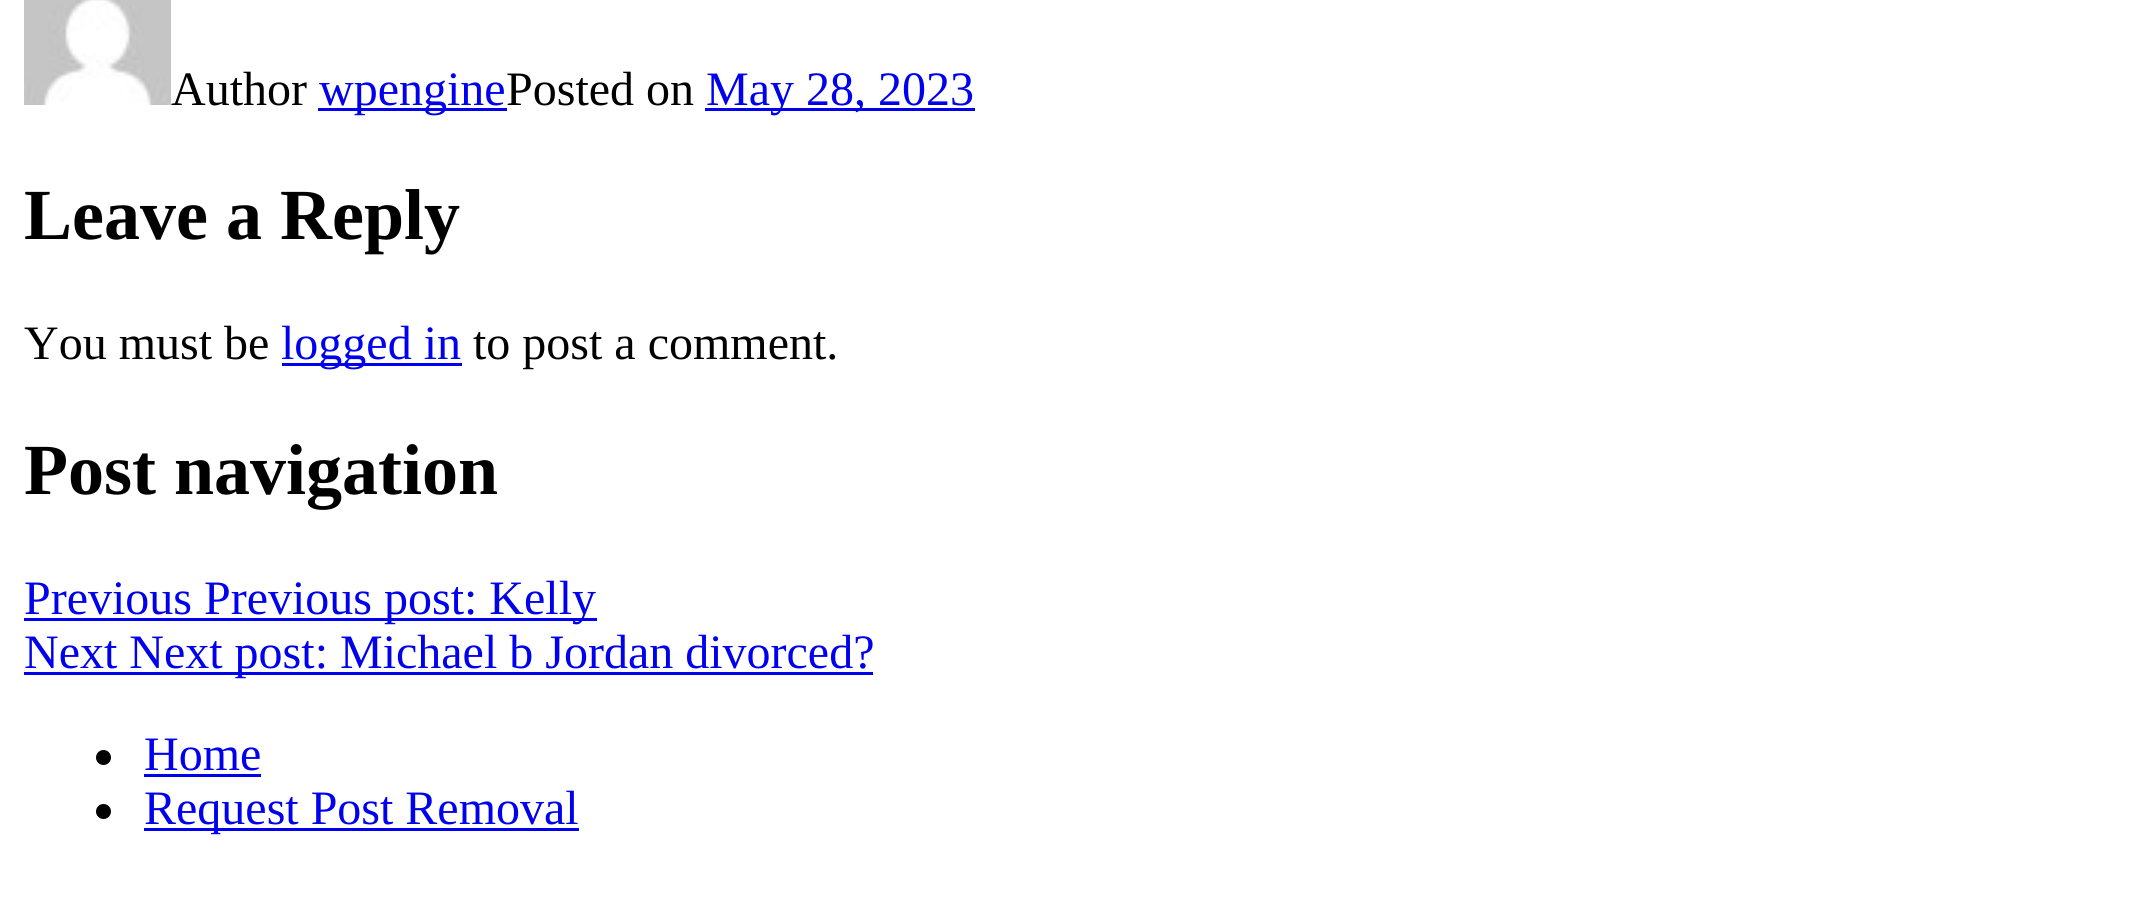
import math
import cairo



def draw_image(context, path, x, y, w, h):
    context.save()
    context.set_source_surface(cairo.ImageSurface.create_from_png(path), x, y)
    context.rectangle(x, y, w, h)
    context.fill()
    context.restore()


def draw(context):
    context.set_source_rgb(1, 1, 1)
    context.paint()
    draw_image(context, "images/1.png", 24, 0, 147, 105)
    context.set_source_rgb(0, 0, 238 / 255)
    context.rectangle(318, 108, 189, 3)
    context.fill()
    context.rectangle(705, 108, 270, 3)
    context.fill()
    context.rectangle(282, 363, 180, 3)
    context.fill()
    context.rectangle(24, 618, 573, 3)
    context.fill()
    context.rectangle(24, 672, 849, 3)
    context.fill()
    context.set_source_rgb(0, 0, 0)
    context.arc(103.5, 757.5, 7.5, 0, 2 * math.pi)
    context.fill()
    context.set_source_rgb(0, 0, 238 / 255)
    context.rectangle(144, 774, 117, 3)
    context.fill()
    context.set_source_rgb(0, 0, 0)
    context.arc(103.5, 811.5, 7.5, 0, 2 * math.pi)
    context.fill()
    context.set_source_rgb(0, 0, 238 / 255)
    context.rectangle(144, 828, 435, 3)
    context.fill()
    context.select_font_face("Liberation Serif")
    context.set_font_size(48)
    context.set_source_rgb(0, 0, 0)
    context.move_to(171, 105)
    context.show_text("Author")
    context.set_source_rgb(0, 0, 238 / 255)
    context.move_to(319, 105)
    context.show_text("wpengine")
    context.set_source_rgb(0, 0, 0)
    context.move_to(506, 105)
    context.show_text("Posted on")
    context.set_source_rgb(0, 0, 238 / 255)
    context.move_to(706, 105)
    context.show_text("May 28, 2023")
    context.select_font_face("Liberation Serif", cairo.FontSlant.NORMAL, cairo.FontWeight.BOLD)
    context.set_font_size(72)
    context.set_source_rgb(0, 0, 0)
    context.move_to(24, 239)
    context.show_text("Leave a Reply")
    context.select_font_face("Liberation Serif")
    context.set_font_size(48)
    context.move_to(24, 359)
    context.show_text("You must be")
    context.set_source_rgb(0, 0, 238 / 255)
    context.move_to(281, 359)
    context.show_text("logged in")
    context.set_source_rgb(0, 0, 0)
    context.move_to(473, 359)
    context.show_text("to post a comment.")
    context.select_font_face("Liberation Serif", cairo.FontSlant.NORMAL, cairo.FontWeight.BOLD)
    context.set_font_size(72)
    context.move_to(24, 494)
    context.show_text("Post navigation")
    context.select_font_face("Liberation Serif")
    context.set_font_size(48)
    context.set_source_rgb(0, 0, 238 / 255)
    context.move_to(24, 614)
    context.show_text("Previous Previous post: Kelly")
    context.move_to(24, 668)
    context.show_text("Next Next post: Michael b Jordan divorced?")
    context.move_to(144, 770)
    context.show_text("Home")
    context.move_to(144, 824)
    context.show_text("Request Post Removal")


surface = cairo.ImageSurface(cairo.Format.RGB24, 2149, 913)
context = cairo.Context(surface)
options = cairo.FontOptions()
options.set_hint_metrics(cairo.HintMetrics.OFF)
options.set_hint_style(cairo.HintStyle.NONE)
context.set_font_options(options)
context.set_miter_limit(4)
draw(context)
surface.write_to_png("out.png")
